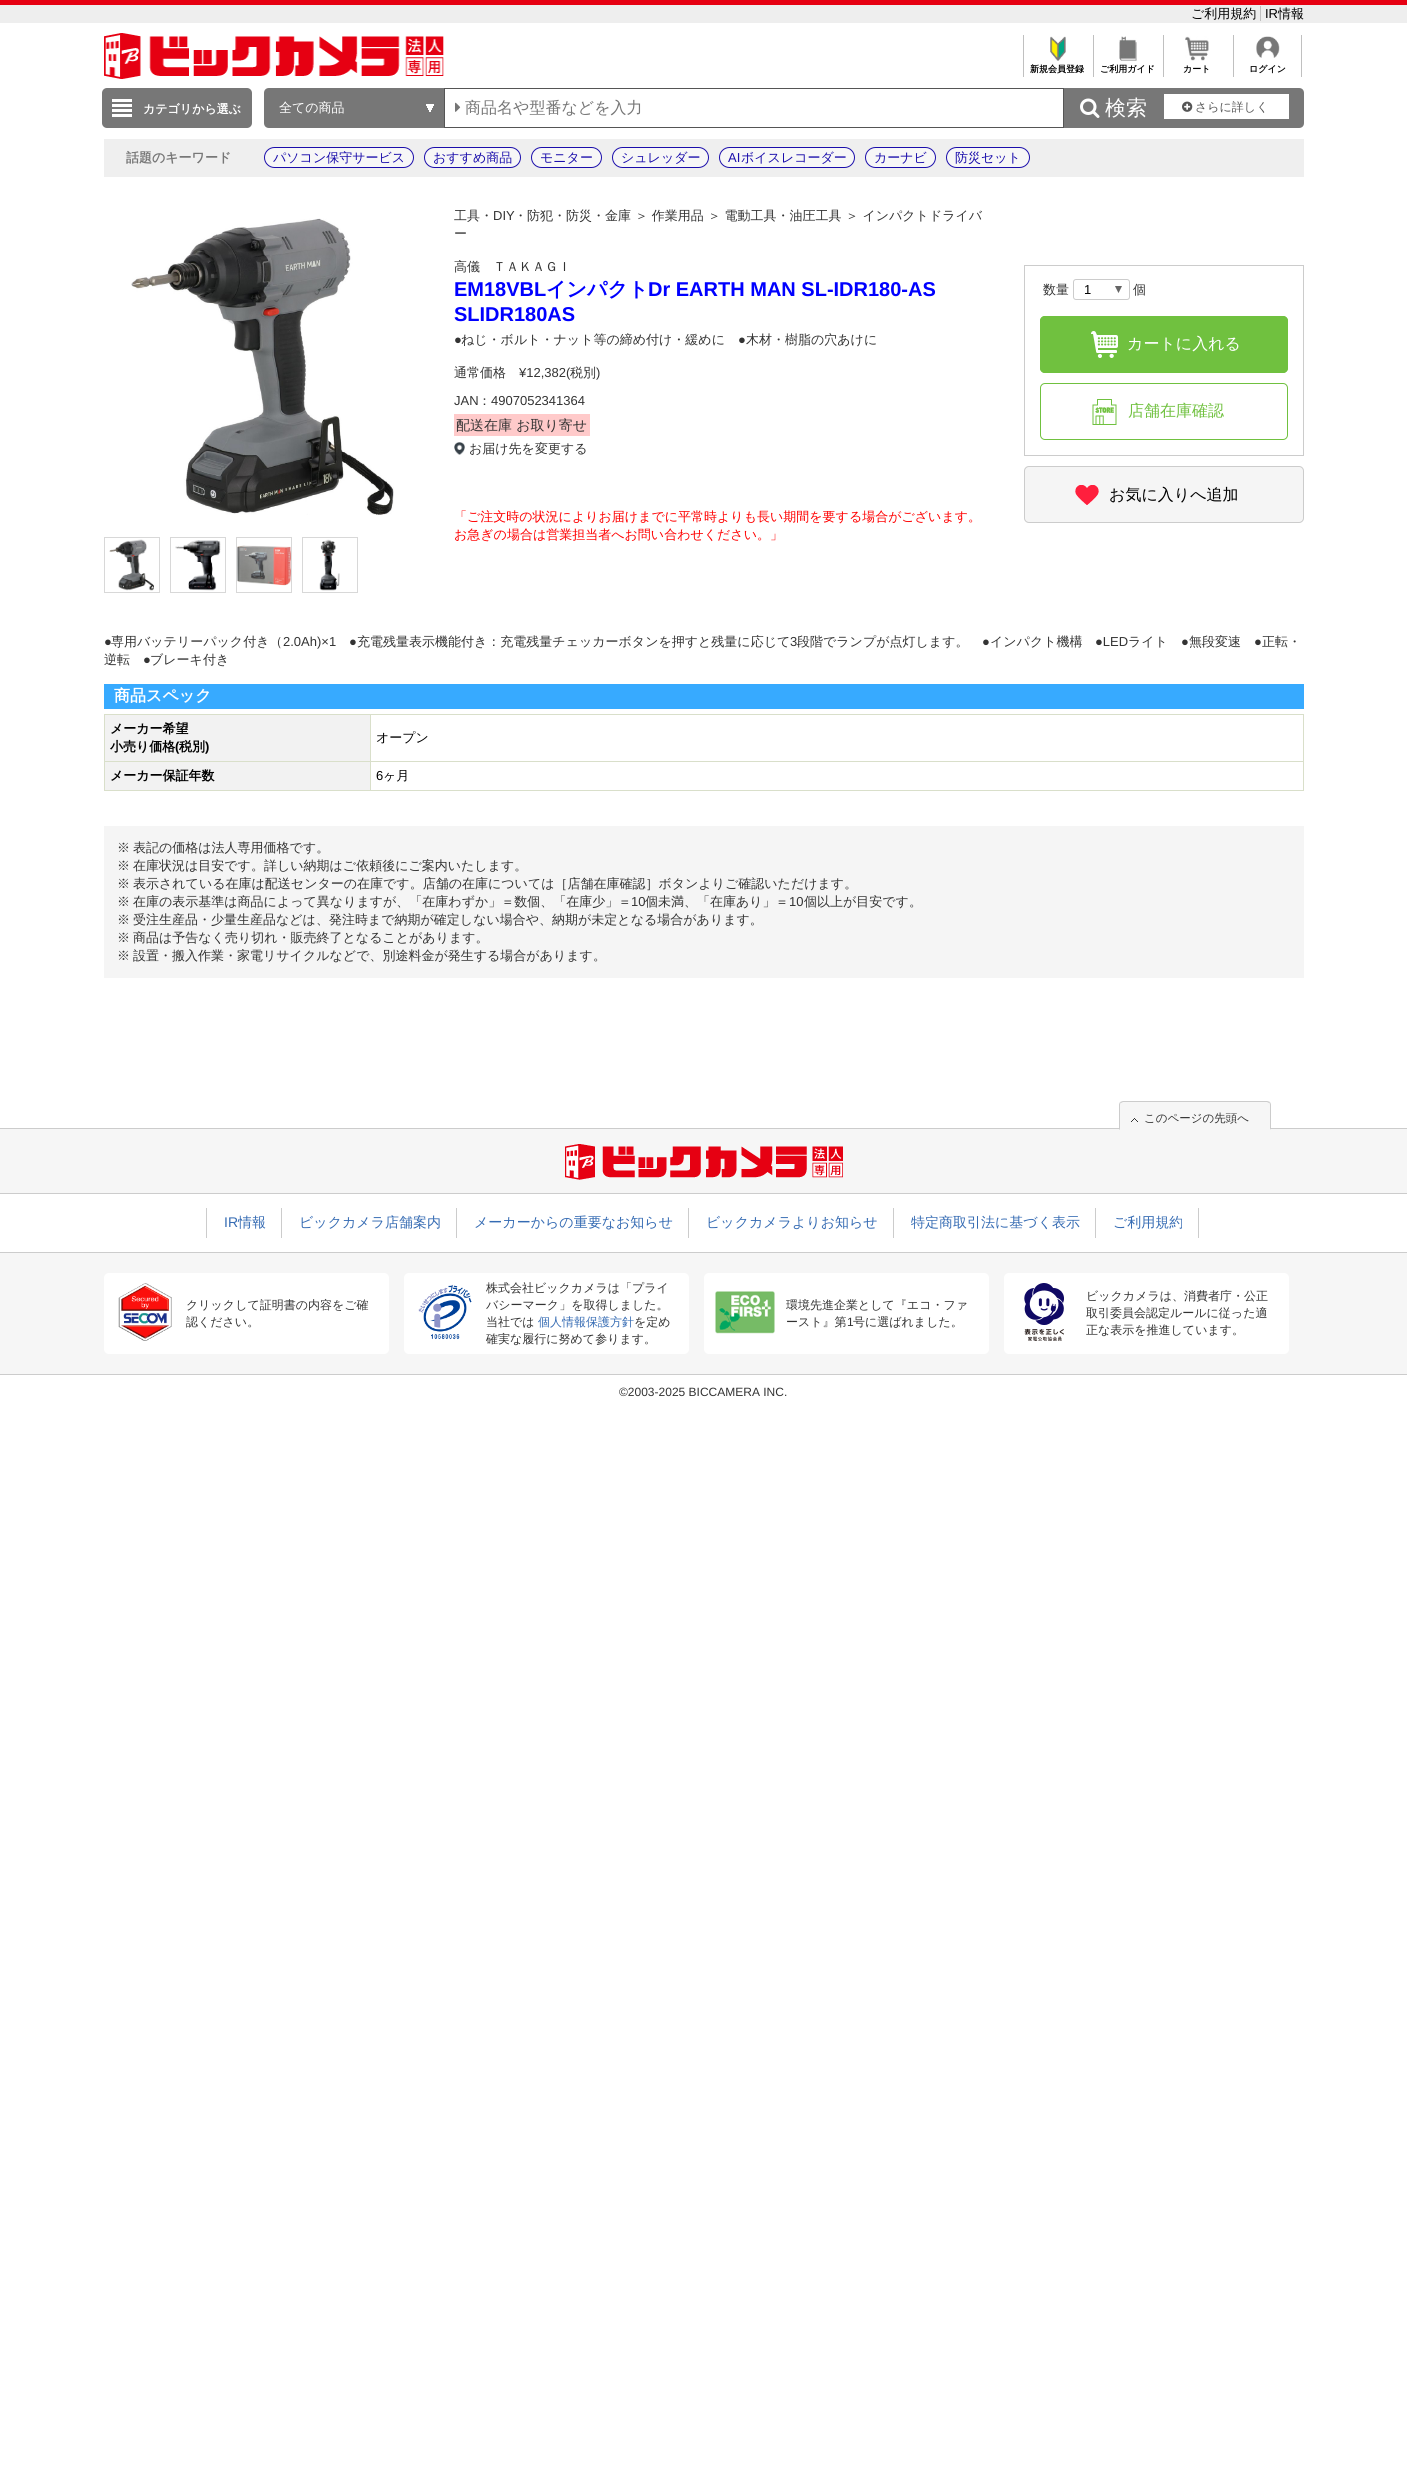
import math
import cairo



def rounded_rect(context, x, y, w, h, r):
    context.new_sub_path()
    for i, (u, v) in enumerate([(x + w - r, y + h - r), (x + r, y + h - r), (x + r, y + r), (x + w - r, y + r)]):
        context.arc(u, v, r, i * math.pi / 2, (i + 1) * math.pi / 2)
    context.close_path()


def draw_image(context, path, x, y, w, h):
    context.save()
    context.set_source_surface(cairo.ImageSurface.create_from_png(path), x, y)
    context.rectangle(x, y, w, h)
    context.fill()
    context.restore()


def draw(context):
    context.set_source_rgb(1, 1, 1)
    context.paint()
    context.set_source_rgb(230 / 255, 0, 18 / 255)
    context.rectangle(0, 0, 1407, 5)
    context.fill()
    context.set_source_rgb(238 / 255, 238 / 255, 238 / 255)
    context.rectangle(0, 5, 1407, 18)
    context.fill()
    context.set_source_rgb(192 / 255, 192 / 255, 192 / 255)
    context.rectangle(1260, 6, 1, 15)
    context.fill()
    draw_image(context, "images/1.png", 104, 33, 340, 46)
    context.rectangle(1023, 35, 1, 42)
    context.fill()
    draw_image(context, "images/2.png", 1050, 36, 16, 25)
    context.rectangle(1093, 35, 1, 42)
    context.fill()
    draw_image(context, "images/3.png", 1119, 36, 18, 25)
    context.rectangle(1163, 35, 1, 42)
    context.fill()
    draw_image(context, "images/4.png", 1185, 36, 24, 25)
    context.rectangle(1301, 35, 1, 42)
    context.fill()
    context.rectangle(1233, 35, 1, 42)
    context.fill()
    draw_image(context, "images/5.png", 1256, 36, 24, 22)
    context.set_source_rgb(119 / 255, 119 / 255, 119 / 255)
    rounded_rect(context, 102, 88, 150, 40, 5)
    context.fill()
    draw_image(context, "images/6.png", 112, 99, 20, 18)
    context.new_path()
    context.move_to(269, 88)
    context.line_to(444, 88)
    context.line_to(444, 128)
    context.line_to(269, 128)
    context.curve_to(266, 128, 264, 126, 264, 123)
    context.line_to(264, 93)
    context.curve_to(264, 90, 266, 88, 269, 88)
    context.close_path()
    context.fill()
    draw_image(context, "images/7.png", 426, 104, 8, 8)
    context.rectangle(444.5, 88.5, 619, 39)
    context.set_source_rgb(85 / 255, 85 / 255, 85 / 255)
    context.set_line_width(1)
    context.stroke()
    draw_image(context, "images/8.png", 455, 102, 6, 10)
    context.set_source_rgb(119 / 255, 119 / 255, 119 / 255)
    context.rectangle(1064, 88, 100, 40)
    context.fill()
    draw_image(context, "images/9.png", 1080, 98, 20, 20)
    context.new_path()
    context.move_to(1164, 88)
    context.line_to(1299, 88)
    context.curve_to(1302, 88, 1304, 90, 1304, 93)
    context.line_to(1304, 123)
    context.curve_to(1304, 126, 1302, 128, 1299, 128)
    context.line_to(1164, 128)
    context.close_path()
    context.fill()
    context.set_source_rgb(1, 1, 1)
    context.rectangle(1164, 94, 125, 25)
    context.fill()
    draw_image(context, "images/10.png", 1182, 101, 11, 11)
    context.set_source_rgb(239 / 255, 239 / 255, 239 / 255)
    context.rectangle(104, 139, 1200, 38)
    context.fill()
    context.set_source_rgb(247 / 255, 247 / 255, 247 / 255)
    rounded_rect(context, 264.5, 147.5, 149, 20, 10)
    context.fill_preserve()
    context.set_source_rgb(26 / 255, 13 / 255, 171 / 255)
    context.stroke()
    context.set_source_rgb(247 / 255, 247 / 255, 247 / 255)
    rounded_rect(context, 424.5, 147.5, 96, 20, 10)
    context.fill_preserve()
    context.set_source_rgb(26 / 255, 13 / 255, 171 / 255)
    context.stroke()
    context.set_source_rgb(247 / 255, 247 / 255, 247 / 255)
    rounded_rect(context, 531.5, 147.5, 70, 20, 10)
    context.fill_preserve()
    context.set_source_rgb(26 / 255, 13 / 255, 171 / 255)
    context.stroke()
    context.set_source_rgb(247 / 255, 247 / 255, 247 / 255)
    rounded_rect(context, 612.5, 147.5, 96, 20, 10)
    context.fill_preserve()
    context.set_source_rgb(26 / 255, 13 / 255, 171 / 255)
    context.stroke()
    context.set_source_rgb(247 / 255, 247 / 255, 247 / 255)
    rounded_rect(context, 719.5, 147.5, 135, 20, 10)
    context.fill_preserve()
    context.set_source_rgb(26 / 255, 13 / 255, 171 / 255)
    context.stroke()
    context.set_source_rgb(247 / 255, 247 / 255, 247 / 255)
    rounded_rect(context, 865.5, 147.5, 70, 20, 10)
    context.fill_preserve()
    context.set_source_rgb(26 / 255, 13 / 255, 171 / 255)
    context.stroke()
    context.set_source_rgb(247 / 255, 247 / 255, 247 / 255)
    rounded_rect(context, 946.5, 147.5, 83, 20, 10)
    context.fill_preserve()
    context.set_source_rgb(26 / 255, 13 / 255, 171 / 255)
    context.stroke()
    draw_image(context, "images/11.png", 131, 218, 263, 297)
    context.rectangle(104.5, 537.5, 55, 55)
    context.set_source_rgb(216 / 255, 216 / 255, 216 / 255)
    context.stroke()
    draw_image(context, "images/12.png", 109, 539, 45, 52)
    context.rectangle(170.5, 537.5, 55, 55)
    context.stroke()
    draw_image(context, "images/13.png", 175, 540, 46, 51)
    context.rectangle(236.5, 537.5, 55, 55)
    context.stroke()
    draw_image(context, "images/14.png", 237, 545, 54, 41)
    context.rectangle(302.5, 537.5, 55, 55)
    context.stroke()
    draw_image(context, "images/15.png", 319, 539, 21, 52)
    context.set_source_rgb(1, 202 / 255, 202 / 255)
    context.rectangle(454, 414, 136, 22)
    context.fill()
    draw_image(context, "images/16.png", 454, 442, 11, 13)
    context.rectangle(1024.5, 265.5, 279, 190)
    context.set_source_rgb(204 / 255, 204 / 255, 204 / 255)
    context.stroke()
    draw_image(context, "images/17.png", 1115, 286, 7, 7)
    rounded_rect(context, 1073.5, 279.5, 56, 20, 2.5)
    context.stroke()
    context.set_source_rgb(112 / 255, 193 / 255, 63 / 255)
    rounded_rect(context, 1040, 316, 248, 57, 5)
    context.fill()
    draw_image(context, "images/18.png", 1091, 331, 27, 27)
    rounded_rect(context, 1040.5, 316.5, 247, 56, 4.5)
    context.stroke()
    draw_image(context, "images/19.png", 1092, 399, 25, 26)
    rounded_rect(context, 1040.5, 383.5, 247, 56, 4.5)
    context.stroke()
    context.set_source_rgb(245 / 255, 245 / 255, 245 / 255)
    rounded_rect(context, 1024, 466, 280, 57, 5)
    context.fill()
    draw_image(context, "images/20.png", 1075, 485, 24, 20)
    rounded_rect(context, 1024.5, 466.5, 279, 56, 4.5)
    context.set_source_rgb(204 / 255, 204 / 255, 204 / 255)
    context.stroke()
    context.set_source_rgb(55 / 255, 170 / 255, 1)
    context.rectangle(104, 684, 1200, 25)
    context.fill()
    context.set_source_rgb(217 / 255, 223 / 255, 202 / 255)
    context.rectangle(104, 714, 1200, 77)
    context.fill()
    context.set_source_rgb(242 / 255, 242 / 255, 242 / 255)
    context.rectangle(105, 715, 265, 46)
    context.fill()
    context.set_source_rgb(1, 1, 1)
    context.rectangle(371, 715, 932, 46)
    context.fill()
    context.set_source_rgb(242 / 255, 242 / 255, 242 / 255)
    context.rectangle(105, 762, 265, 28)
    context.fill()
    context.set_source_rgb(1, 1, 1)
    context.rectangle(371, 762, 932, 28)
    context.fill()
    context.set_source_rgb(245 / 255, 245 / 255, 245 / 255)
    context.rectangle(104, 826, 1200, 152)
    context.fill()
    context.set_source_rgb(204 / 255, 204 / 255, 204 / 255)
    context.rectangle(0, 1128, 1407, 1)
    context.fill()
    context.set_source_rgb(246 / 255, 246 / 255, 246 / 255)
    context.rectangle(0, 1129, 1407, 64)
    context.fill()
    context.new_path()
    context.move_to(1123, 1101)
    context.line_to(1267, 1101)
    context.curve_to(1269, 1101, 1271, 1103, 1271, 1105)
    context.line_to(1271, 1130)
    context.line_to(1119, 1130)
    context.line_to(1119, 1105)
    context.curve_to(1119, 1103, 1121, 1101, 1123, 1101)
    context.close_path()
    context.fill()
    context.set_source_rgb(204 / 255, 204 / 255, 204 / 255)
    context.new_path()
    context.move_to(1123, 1101)
    context.line_to(1120, 1102)
    context.line_to(1121, 1103)
    context.line_to(1123, 1102)
    context.line_to(1267, 1102)
    context.line_to(1269, 1103)
    context.line_to(1270, 1102)
    context.line_to(1267, 1101)
    context.close_path()
    context.fill()
    context.new_path()
    context.move_to(1271, 1130)
    context.line_to(1271, 1105)
    context.curve_to(1271, 1104, 1270.5, 1103, 1270, 1102)
    context.line_to(1269, 1103)
    context.curve_to(1270, 1103, 1270, 1104, 1270, 1105)
    context.line_to(1270, 1129)
    context.close_path()
    context.fill()
    context.set_source_rgb(246 / 255, 246 / 255, 246 / 255)
    context.new_path()
    context.move_to(1271, 1130)
    context.line_to(1270, 1129)
    context.line_to(1120, 1129)
    context.line_to(1119, 1130)
    context.close_path()
    context.fill()
    context.set_source_rgb(204 / 255, 204 / 255, 204 / 255)
    context.new_path()
    context.move_to(1119, 1130)
    context.line_to(1120, 1129)
    context.line_to(1120, 1105)
    context.curve_to(1120, 1104, 1120, 1103, 1121, 1103)
    context.line_to(1120, 1102)
    context.curve_to(1119.5, 1103, 1119, 1104, 1119, 1105)
    context.close_path()
    context.fill()
    draw_image(context, "images/21.png", 1131, 1118, 7, 4)
    draw_image(context, "images/22.png", 565, 1144, 278, 36)
    context.rectangle(0, 1193, 1407, 1)
    context.fill()
    context.rectangle(0, 1252, 1407, 1)
    context.fill()
    context.rectangle(206, 1208, 1, 30)
    context.fill()
    context.rectangle(281, 1208, 1, 30)
    context.fill()
    context.rectangle(456, 1208, 1, 30)
    context.fill()
    context.rectangle(688, 1208, 1, 30)
    context.fill()
    context.rectangle(893, 1208, 1, 30)
    context.fill()
    context.rectangle(1095, 1208, 1, 30)
    context.fill()
    context.rectangle(1198, 1208, 1, 30)
    context.fill()
    context.set_source_rgb(246 / 255, 246 / 255, 246 / 255)
    context.rectangle(0, 1253, 1407, 121)
    context.fill()
    context.set_source_rgb(204 / 255, 204 / 255, 204 / 255)
    context.rectangle(0, 1374, 1407, 1)
    context.fill()
    context.set_source_rgb(1, 1, 1)
    rounded_rect(context, 104, 1273, 285, 81, 5)
    context.fill()
    draw_image(context, "images/23.png", 118, 1283, 54, 58)
    rounded_rect(context, 404, 1273, 285, 81, 5)
    context.fill()
    draw_image(context, "images/24.png", 418, 1284, 54, 56)
    rounded_rect(context, 704, 1273, 285, 81, 5)
    context.fill()
    draw_image(context, "images/25.png", 715, 1291, 60, 43)
    rounded_rect(context, 1004, 1273, 285, 81, 5)
    context.fill()
    draw_image(context, "images/26.png", 1024, 1283, 40, 58)
    context.select_font_face("WenQuanYi Zen Hei Medium")
    context.set_font_size(13)
    context.set_source_rgb(0, 0, 0)
    context.move_to(1191, 18)
    context.show_text("ご利用規約")
    context.select_font_face("Liberation Sans")
    context.move_to(1265, 18)
    context.show_text("IR")
    context.select_font_face("WenQuanYi Zen Hei Medium")
    context.move_to(1278, 18)
    context.show_text("情報")
    context.select_font_face("WenQuanYi Zen Hei", cairo.FontSlant.NORMAL, cairo.FontWeight.BOLD)
    context.set_font_size(9)
    context.move_to(1030, 72)
    context.show_text("新規会員登録")
    context.move_to(1100, 72)
    context.show_text("ご利用ガイド")
    context.move_to(1183, 72)
    context.show_text("カート")
    context.move_to(1249, 72)
    context.show_text("ログイン")
    context.set_font_size(12)
    context.set_source_rgb(1, 1, 1)
    context.move_to(143, 113)
    context.show_text("カテゴリから選ぶ")
    context.select_font_face("WenQuanYi Zen Hei Medium")
    context.set_font_size(13)
    context.move_to(279, 112)
    context.show_text("全ての商品")
    context.set_font_size(16)
    context.set_source_rgb(119 / 255, 119 / 255, 119 / 255)
    context.move_to(465, 113)
    context.show_text("商品名や型番などを入力")
    context.set_font_size(21)
    context.set_source_rgb(1, 1, 1)
    context.move_to(1105, 115)
    context.show_text("検索")
    context.set_font_size(12)
    context.set_source_rgb(85 / 255, 85 / 255, 85 / 255)
    context.move_to(1195, 111)
    context.show_text("さらに詳しく")
    context.select_font_face("WenQuanYi Zen Hei", cairo.FontSlant.NORMAL, cairo.FontWeight.BOLD)
    context.set_font_size(13)
    context.set_source_rgb(119 / 255, 119 / 255, 119 / 255)
    context.move_to(126, 162)
    context.show_text("話題のキーワード")
    context.select_font_face("WenQuanYi Zen Hei Medium")
    context.set_source_rgb(26 / 255, 13 / 255, 171 / 255)
    context.move_to(273, 162)
    context.show_text("パソコン保守サービス")
    context.move_to(433, 162)
    context.show_text("おすすめ商品")
    context.move_to(540, 162)
    context.show_text("モニター")
    context.move_to(621, 162)
    context.show_text("シュレッダー")
    context.select_font_face("Liberation Sans")
    context.move_to(728, 162)
    context.show_text("AI")
    context.select_font_face("WenQuanYi Zen Hei Medium")
    context.move_to(741, 162)
    context.show_text("ボイスレコーダー")
    context.move_to(874, 162)
    context.show_text("カーナビ")
    context.move_to(955, 162)
    context.show_text("防災セット")
    context.set_source_rgb(51 / 255, 51 / 255, 51 / 255)
    context.move_to(454, 220)
    context.show_text("工具・")
    context.select_font_face("Liberation Sans")
    context.move_to(493, 220)
    context.show_text("DIY")
    context.select_font_face("WenQuanYi Zen Hei Medium")
    context.move_to(514, 220)
    context.show_text("・防犯・防災・金庫 ＞ 作業用品 ＞ 電動工具・油圧工具 ＞ インパクトドライバ")
    context.move_to(454, 238)
    context.show_text("ー")
    context.move_to(454, 271)
    context.show_text("高儀　ＴＡＫＡＧＩ")
    context.select_font_face("Liberation Sans", cairo.FontSlant.NORMAL, cairo.FontWeight.BOLD)
    context.set_font_size(20)
    context.set_source_rgb(0, 0, 1)
    context.move_to(454, 296)
    context.show_text("EM18VBL")
    context.select_font_face("WenQuanYi Zen Hei", cairo.FontSlant.NORMAL, cairo.FontWeight.BOLD)
    context.move_to(546, 296)
    context.show_text("インパクト")
    context.select_font_face("Liberation Sans", cairo.FontSlant.NORMAL, cairo.FontWeight.BOLD)
    context.move_to(648, 296)
    context.show_text("Dr EARTH MAN SL-IDR180-AS")
    context.move_to(454, 321)
    context.show_text("SLIDR180AS")
    context.select_font_face("Liberation Sans")
    context.set_font_size(13)
    context.set_source_rgb(51 / 255, 51 / 255, 51 / 255)
    context.move_to(454, 344)
    context.show_text("●")
    context.select_font_face("WenQuanYi Zen Hei Medium")
    context.move_to(461, 344)
    context.show_text("ねじ・ボルト・ナット等の締め付け・緩めに")
    context.select_font_face("Liberation Sans")
    context.move_to(738, 344)
    context.show_text("●")
    context.select_font_face("WenQuanYi Zen Hei Medium")
    context.move_to(746, 344)
    context.show_text("木材・樹脂の穴あけに")
    context.move_to(454, 377)
    context.show_text("通常価格")
    context.select_font_face("Liberation Sans")
    context.move_to(519, 377)
    context.show_text("¥12,382(")
    context.select_font_face("WenQuanYi Zen Hei Medium")
    context.move_to(570, 377)
    context.show_text("税別")
    context.select_font_face("Liberation Sans")
    context.move_to(596, 377)
    context.show_text(")")
    context.move_to(454, 405)
    context.show_text("JAN")
    context.select_font_face("WenQuanYi Zen Hei Medium")
    context.move_to(478, 405)
    context.show_text("：")
    context.select_font_face("Liberation Sans")
    context.move_to(491, 405)
    context.show_text("4907052341364")
    context.select_font_face("WenQuanYi Zen Hei Medium")
    context.set_font_size(14)
    context.move_to(456, 430)
    context.show_text("配送在庫 お取り寄せ")
    context.set_font_size(13)
    context.move_to(469, 453)
    context.show_text("お届け先を変更する")
    context.set_source_rgb(1, 0, 0)
    context.move_to(454, 521)
    context.show_text("「ご注文時の状況によりお届けまでに平常時よりも長い期間を要する場合がございます。")
    context.move_to(454, 539)
    context.show_text("お急ぎの場合は営業担当者へお問い合わせください。」")
    context.set_source_rgb(51 / 255, 51 / 255, 51 / 255)
    context.move_to(1043, 294)
    context.show_text("数量")
    context.select_font_face("Liberation Sans")
    context.set_source_rgb(0, 0, 0)
    context.move_to(1084, 294)
    context.show_text("1")
    context.select_font_face("WenQuanYi Zen Hei Medium")
    context.set_source_rgb(51 / 255, 51 / 255, 51 / 255)
    context.move_to(1133, 294)
    context.show_text("個")
    context.set_font_size(16)
    context.set_source_rgb(1, 1, 1)
    context.move_to(1127, 349)
    context.show_text("カートに入れる")
    context.set_source_rgb(112 / 255, 193 / 255, 63 / 255)
    context.move_to(1128, 416)
    context.show_text("店舗在庫確認")
    context.set_source_rgb(0, 0, 0)
    context.move_to(1109, 500)
    context.show_text("お気に入りへ追加")
    context.select_font_face("Liberation Sans")
    context.set_font_size(13)
    context.set_source_rgb(51 / 255, 51 / 255, 51 / 255)
    context.move_to(104, 646)
    context.show_text("●")
    context.select_font_face("WenQuanYi Zen Hei Medium")
    context.move_to(111, 646)
    context.show_text("専用バッテリーパック付き（")
    context.select_font_face("Liberation Sans")
    context.move_to(283, 646)
    context.show_text("2.0Ah)×1")
    context.move_to(349, 646)
    context.show_text("●")
    context.select_font_face("WenQuanYi Zen Hei Medium")
    context.move_to(357, 646)
    context.show_text("充電残量表示機能付き：充電残量チェッカーボタンを押すと残量に応じて")
    context.select_font_face("Liberation Sans")
    context.move_to(790, 646)
    context.show_text("3")
    context.select_font_face("WenQuanYi Zen Hei Medium")
    context.move_to(797, 646)
    context.show_text("段階でランプが点灯します。")
    context.select_font_face("Liberation Sans")
    context.move_to(982, 646)
    context.show_text("●")
    context.select_font_face("WenQuanYi Zen Hei Medium")
    context.move_to(990, 646)
    context.show_text("インパクト機構")
    context.select_font_face("Liberation Sans")
    context.move_to(1095, 646)
    context.show_text("●LED")
    context.select_font_face("WenQuanYi Zen Hei Medium")
    context.move_to(1128, 646)
    context.show_text("ライト")
    context.select_font_face("Liberation Sans")
    context.move_to(1181, 646)
    context.show_text("●")
    context.select_font_face("WenQuanYi Zen Hei Medium")
    context.move_to(1189, 646)
    context.show_text("無段変速")
    context.select_font_face("Liberation Sans")
    context.move_to(1254, 646)
    context.show_text("●")
    context.select_font_face("WenQuanYi Zen Hei Medium")
    context.move_to(1262, 646)
    context.show_text("正転・")
    context.move_to(104, 664)
    context.show_text("逆転")
    context.select_font_face("Liberation Sans")
    context.move_to(143, 664)
    context.show_text("●")
    context.select_font_face("WenQuanYi Zen Hei Medium")
    context.move_to(150, 664)
    context.show_text("ブレーキ付き")
    context.select_font_face("WenQuanYi Zen Hei", cairo.FontSlant.NORMAL, cairo.FontWeight.BOLD)
    context.set_font_size(16)
    context.set_source_rgb(1, 1, 1)
    context.move_to(114, 701)
    context.show_text("商品スペック")
    context.set_font_size(13)
    context.set_source_rgb(0, 0, 0)
    context.move_to(110, 733)
    context.show_text("メーカー希望")
    context.move_to(110, 751)
    context.show_text("小売り価格")
    context.select_font_face("Liberation Sans", cairo.FontSlant.NORMAL, cairo.FontWeight.BOLD)
    context.move_to(175, 751)
    context.show_text("(")
    context.select_font_face("WenQuanYi Zen Hei", cairo.FontSlant.NORMAL, cairo.FontWeight.BOLD)
    context.move_to(179, 751)
    context.show_text("税別")
    context.select_font_face("Liberation Sans", cairo.FontSlant.NORMAL, cairo.FontWeight.BOLD)
    context.move_to(205, 751)
    context.show_text(")")
    context.select_font_face("WenQuanYi Zen Hei Medium")
    context.move_to(376, 742)
    context.show_text("オープン")
    context.select_font_face("WenQuanYi Zen Hei", cairo.FontSlant.NORMAL, cairo.FontWeight.BOLD)
    context.move_to(110, 780)
    context.show_text("メーカー保証年数")
    context.select_font_face("Liberation Sans")
    context.move_to(376, 780)
    context.show_text("6")
    context.select_font_face("WenQuanYi Zen Hei Medium")
    context.move_to(383, 780)
    context.show_text("ヶ月")
    context.set_source_rgb(51 / 255, 51 / 255, 51 / 255)
    context.move_to(117, 852)
    context.show_text("※")
    context.move_to(133, 852)
    context.show_text("表記の価格は法人専用価格です。")
    context.move_to(117, 870)
    context.show_text("※")
    context.move_to(133, 870)
    context.show_text("在庫状況は目安です。詳しい納期はご依頼後にご案内いたします。")
    context.move_to(117, 888)
    context.show_text("※")
    context.move_to(133, 888)
    context.show_text("表示されている在庫は配送センターの在庫です。店舗の在庫については［店舗在庫確認］ボタンよりご確認いただけます。")
    context.move_to(117, 906)
    context.show_text("※")
    context.move_to(133, 906)
    context.show_text("在庫の表示基準は商品によって異なりますが、「在庫わずか」＝数個、「在庫少」＝")
    context.select_font_face("Liberation Sans")
    context.move_to(631, 906)
    context.show_text("10")
    context.select_font_face("WenQuanYi Zen Hei Medium")
    context.move_to(645, 906)
    context.show_text("個未満、「在庫あり」＝")
    context.select_font_face("Liberation Sans")
    context.move_to(789, 906)
    context.show_text("10")
    context.select_font_face("WenQuanYi Zen Hei Medium")
    context.move_to(804, 906)
    context.show_text("個以上が目安です。")
    context.move_to(117, 924)
    context.show_text("※")
    context.move_to(133, 924)
    context.show_text("受注生産品・少量生産品などは、発注時まで納期が確定しない場合や、納期が未定となる場合があります。")
    context.move_to(117, 942)
    context.show_text("※")
    context.move_to(133, 942)
    context.show_text("商品は予告なく売り切れ・販売終了となることがあります。")
    context.move_to(117, 960)
    context.show_text("※")
    context.move_to(133, 960)
    context.show_text("設置・搬入作業・家電リサイクルなどで、別途料金が発生する場合があります。")
    context.set_font_size(11.5)
    context.move_to(1144, 1122)
    context.show_text("このページの先頭へ")
    context.select_font_face("Liberation Sans")
    context.set_font_size(14)
    context.set_source_rgb(53 / 255, 107 / 255, 179 / 255)
    context.move_to(224, 1227)
    context.show_text("IR")
    context.select_font_face("WenQuanYi Zen Hei Medium")
    context.move_to(238, 1227)
    context.show_text("情報")
    context.move_to(299, 1227)
    context.show_text("ビックカメラ店舗案内")
    context.move_to(474, 1227)
    context.show_text("メーカーからの重要なお知らせ")
    context.move_to(706, 1227)
    context.show_text("ビックカメラよりお知らせ")
    context.move_to(911, 1227)
    context.show_text("特定商取引法に基づく表示")
    context.move_to(1113, 1227)
    context.show_text("ご利用規約")
    context.set_font_size(12)
    context.set_source_rgb(51 / 255, 51 / 255, 51 / 255)
    context.move_to(186, 1309)
    context.show_text("クリックして証明書の内容をご確")
    context.move_to(186, 1326)
    context.show_text("認ください。")
    context.move_to(486, 1292)
    context.show_text("株式会社ビックカメラは「プライ")
    context.move_to(486, 1309)
    context.show_text("バシーマーク」を取得しました。")
    context.move_to(486, 1326)
    context.show_text("当社では")
    context.set_source_rgb(53 / 255, 107 / 255, 179 / 255)
    context.move_to(538, 1326)
    context.show_text("個人情報保護方針")
    context.set_source_rgb(51 / 255, 51 / 255, 51 / 255)
    context.move_to(634, 1326)
    context.show_text("を定め")
    context.move_to(486, 1343)
    context.show_text("確実な履行に努めて参ります。")
    context.move_to(786, 1309)
    context.show_text("環境先進企業として『エコ・ファ")
    context.move_to(786, 1326)
    context.show_text("ースト』第")
    context.select_font_face("Liberation Sans")
    context.move_to(847, 1326)
    context.show_text("1")
    context.select_font_face("WenQuanYi Zen Hei Medium")
    context.move_to(853, 1326)
    context.show_text("号に選ばれました。")
    context.move_to(1086, 1300)
    context.show_text("ビックカメラは、消費者庁・公正")
    context.move_to(1086, 1317)
    context.show_text("取引委員会認定ルールに従った適")
    context.move_to(1086, 1334)
    context.show_text("正な表示を推進しています。")
    context.select_font_face("Liberation Sans")
    context.move_to(619, 1396)
    context.show_text("©2003-2025 BICCAMERA INC.")


surface = cairo.ImageSurface(cairo.Format.RGB24, 1407, 2465)
context = cairo.Context(surface)
options = cairo.FontOptions()
options.set_hint_metrics(cairo.HintMetrics.OFF)
options.set_hint_style(cairo.HintStyle.NONE)
context.set_font_options(options)
context.set_miter_limit(4)
draw(context)
surface.write_to_png("out.png")
